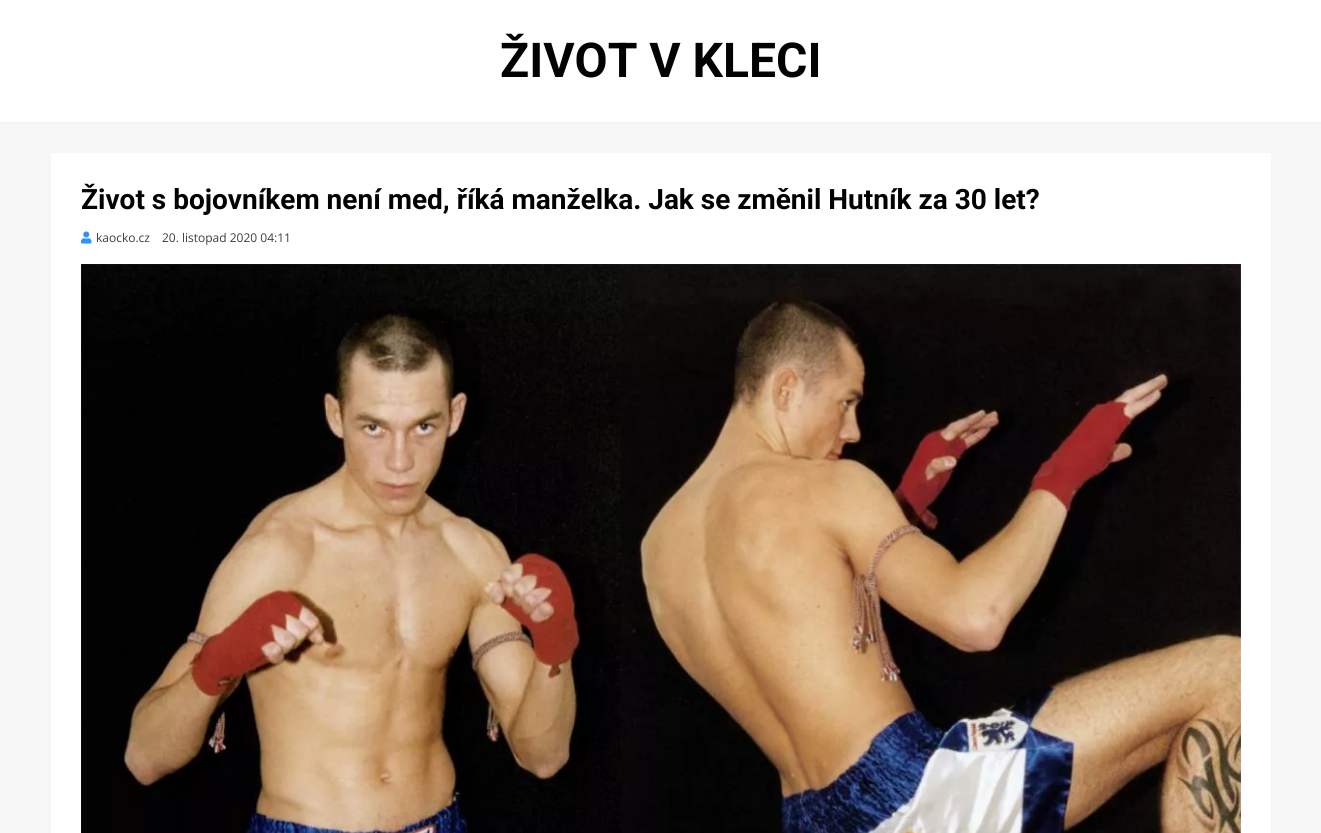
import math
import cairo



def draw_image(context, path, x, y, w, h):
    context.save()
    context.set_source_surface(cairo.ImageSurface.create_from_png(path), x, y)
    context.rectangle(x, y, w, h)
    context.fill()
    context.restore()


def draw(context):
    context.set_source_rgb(246 / 255, 246 / 255, 246 / 255)
    context.paint()
    context.set_source_rgb(1, 1, 1)
    context.rectangle(0, 0, 1321, 122)
    context.fill()
    context.set_source_rgb(240 / 255, 240 / 255, 240 / 255)
    context.rectangle(0, 122, 1321, 1)
    context.fill()
    context.set_source_rgb(1, 1, 1)
    context.rectangle(51, 153, 1220, 680)
    context.fill()
    draw_image(context, "images/1.png", 81, 231, 11, 13)
    draw_image(context, "images/2.png", 81, 264, 1160, 569)
    context.select_font_face("Roboto", cairo.FontSlant.NORMAL, cairo.FontWeight.BOLD)
    context.set_font_size(48)
    context.set_source_rgb(2 / 255, 2 / 255, 2 / 255)
    context.move_to(500, 77)
    context.show_text("ŽIVOT V KLECI")
    context.set_font_size(28)
    context.move_to(81, 209)
    context.show_text("Život s bojovníkem není med, říká manželka. Jak se změnil Hutník za 30 let?")
    context.select_font_face("Open Sans")
    context.set_font_size(12)
    context.set_source_rgb(61 / 255, 61 / 255, 61 / 255)
    context.move_to(96, 242)
    context.show_text("kaocko.cz")
    context.move_to(162, 242)
    context.show_text("20. listopad 2020 04:11")


surface = cairo.ImageSurface(cairo.Format.RGB24, 1321, 833)
context = cairo.Context(surface)
options = cairo.FontOptions()
options.set_hint_metrics(cairo.HintMetrics.OFF)
options.set_hint_style(cairo.HintStyle.NONE)
context.set_font_options(options)
context.set_miter_limit(4)
draw(context)
surface.write_to_png("out.png")
